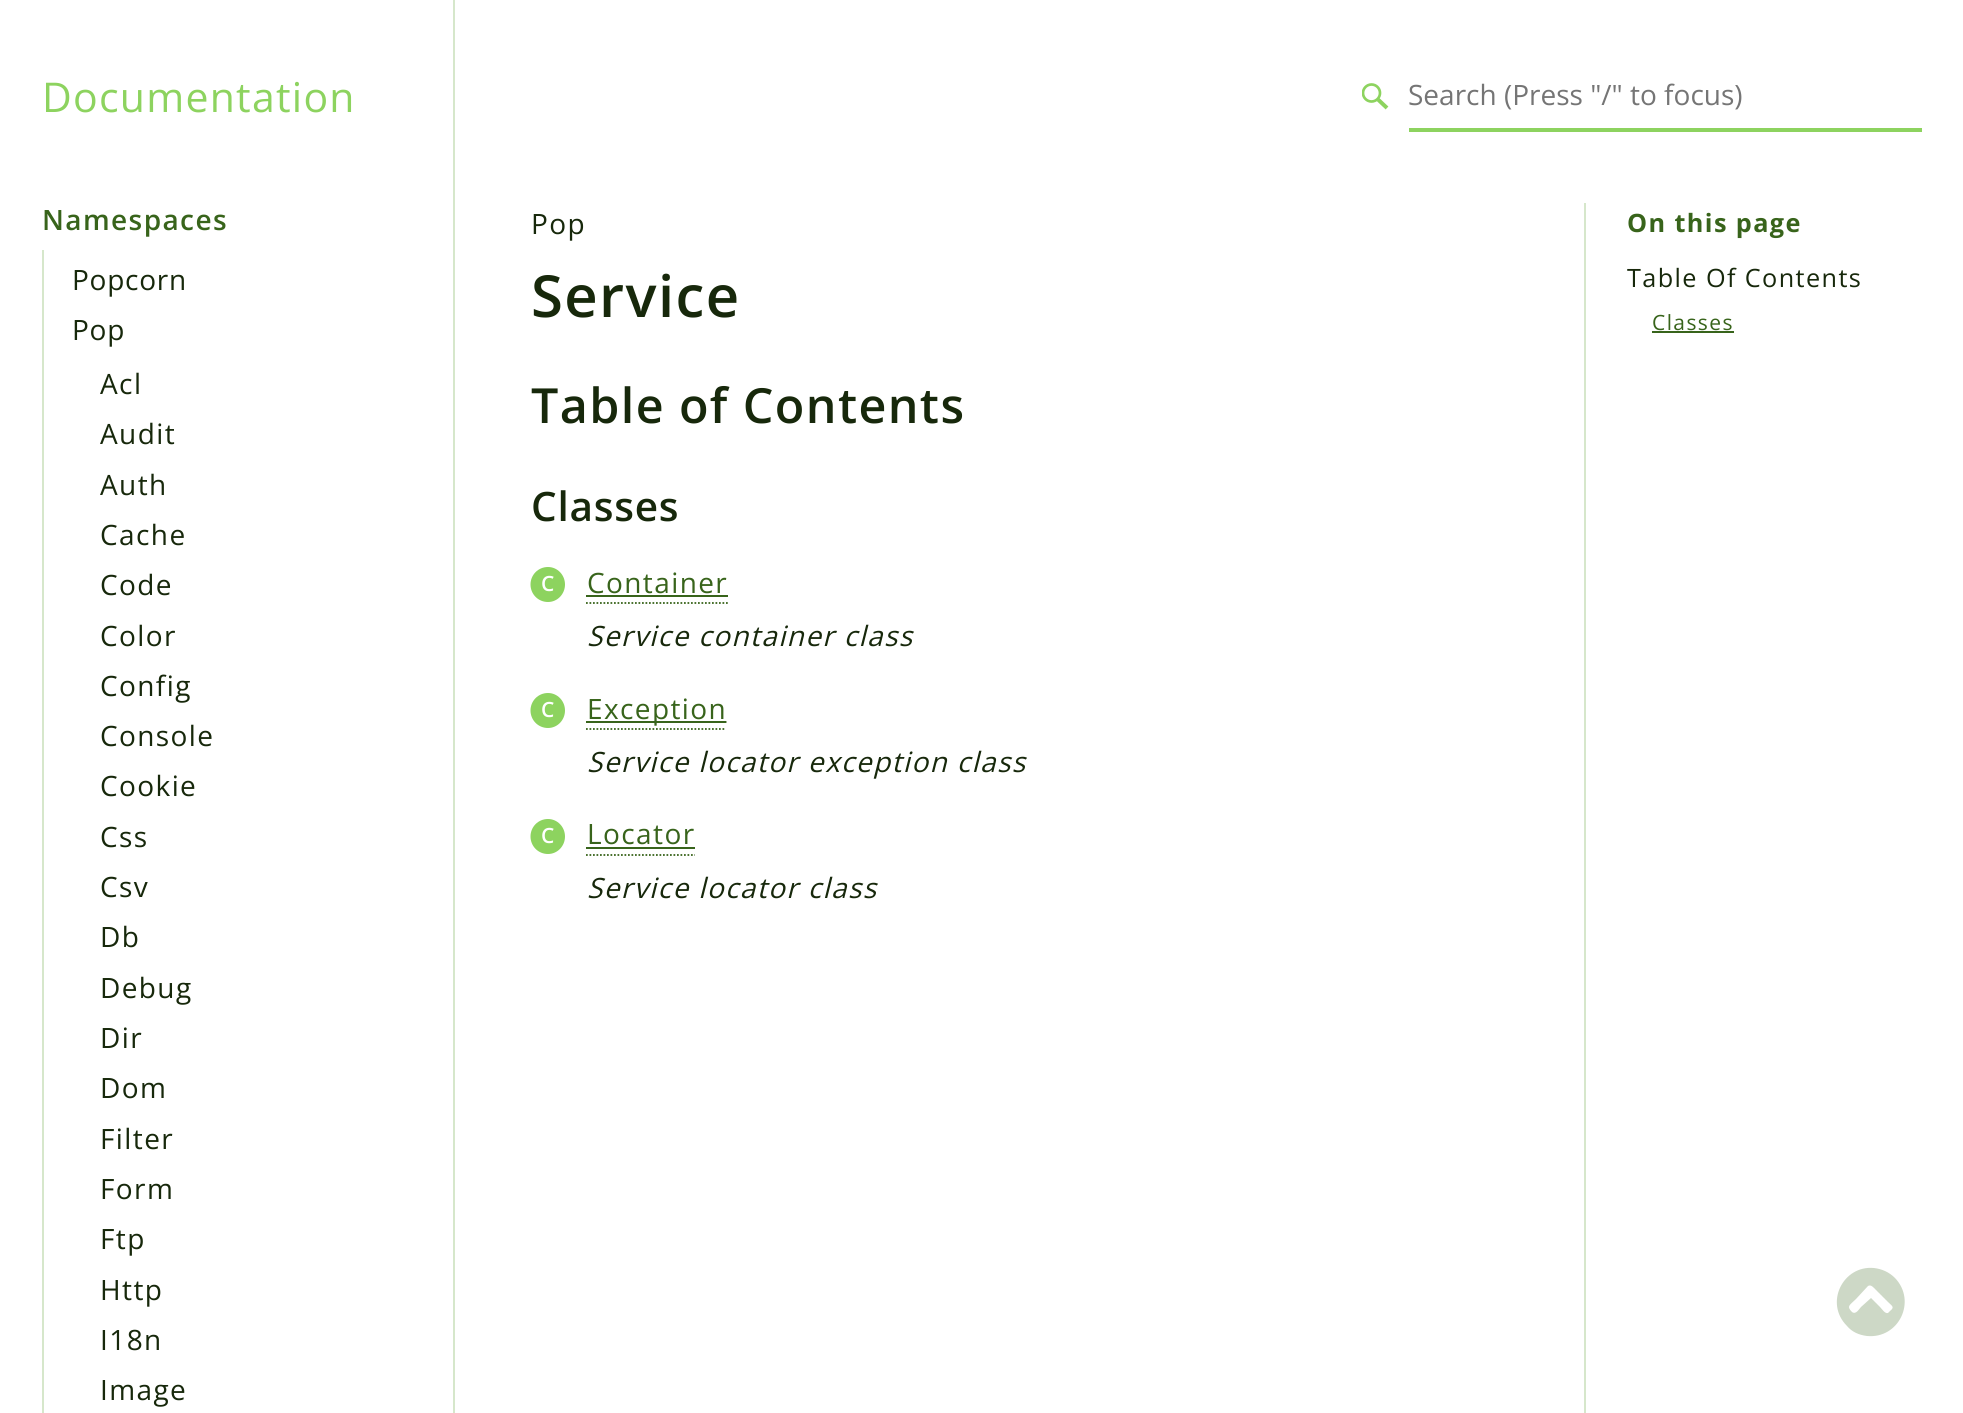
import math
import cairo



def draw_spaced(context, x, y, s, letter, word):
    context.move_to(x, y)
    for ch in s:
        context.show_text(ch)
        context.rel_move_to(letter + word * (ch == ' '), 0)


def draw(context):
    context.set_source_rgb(1, 1, 1)
    context.paint()
    context.set_source_rgb(214 / 255, 231 / 255, 203 / 255)
    context.rectangle(453, 0, 2, 1413)
    context.fill()
    context.save()
    context.rectangle(1362, 82, 28, 28)
    context.clip()
    context.arc(1371.5, 93, 8.5, 0, 2 * math.pi)
    context.set_source_rgb(141 / 255, 211 / 255, 95 / 255)
    context.set_line_width(2.7)
    context.stroke()
    context.restore()
    context.new_path()
    context.move_to(1378, 99.5)
    context.line_to(1387, 108)
    context.set_source_rgb(141 / 255, 211 / 255, 95 / 255)
    context.set_line_width(4)
    context.stroke()
    context.rectangle(1409, 128, 513, 4)
    context.fill()
    context.set_source_rgb(214 / 255, 231 / 255, 203 / 255)
    context.rectangle(42, 250, 2, 1163)
    context.fill()
    context.set_source_rgb(141 / 255, 211 / 255, 95 / 255)
    context.new_path()
    context.move_to(548, 567)
    context.curve_to(557.5, 567, 565, 575, 565, 584.5)
    context.curve_to(565, 594, 557.5, 602, 548, 602)
    context.curve_to(538, 602, 530.5, 594, 530.5, 584.5)
    context.curve_to(530.5, 575, 538, 567, 548, 567)
    context.close_path()
    context.fill()
    context.new_path()
    context.move_to(586, 603)
    context.line_to(728, 603)
    context.set_source_rgb(56 / 255, 100 / 255, 27 / 255)
    context.set_line_width(1.8)
    context.set_dash([1.75, 1.75])
    context.stroke()
    context.rectangle(586, 595, 142, 2)
    context.fill()
    context.set_source_rgb(141 / 255, 211 / 255, 95 / 255)
    context.new_path()
    context.move_to(548, 693)
    context.curve_to(557.5, 693, 565, 701, 565, 710.5)
    context.curve_to(565, 720, 557.5, 728, 548, 728)
    context.curve_to(538, 728, 530.5, 720, 530.5, 710.5)
    context.curve_to(530.5, 701, 538, 693, 548, 693)
    context.close_path()
    context.fill()
    context.new_path()
    context.move_to(586, 729)
    context.line_to(726, 729)
    context.set_source_rgb(56 / 255, 100 / 255, 27 / 255)
    context.stroke()
    context.new_path()
    context.move_to(586.5, 722)
    context.line_to(727, 722)
    context.stroke()
    context.rectangle(586, 721, 140, 2)
    context.fill()
    context.set_source_rgb(141 / 255, 211 / 255, 95 / 255)
    context.new_path()
    context.move_to(548, 819)
    context.curve_to(557.5, 819, 565, 827, 565, 836.5)
    context.curve_to(565, 846, 557.5, 854, 548, 854)
    context.curve_to(538, 854, 530.5, 846, 530.5, 836.5)
    context.curve_to(530.5, 827, 538, 819, 548, 819)
    context.close_path()
    context.fill()
    context.new_path()
    context.move_to(586, 855)
    context.line_to(695, 855)
    context.set_source_rgb(56 / 255, 100 / 255, 27 / 255)
    context.stroke()
    context.rectangle(586, 847, 109, 2)
    context.fill()
    context.set_source_rgb(214 / 255, 231 / 255, 203 / 255)
    context.rectangle(1584, 203, 2, 1210)
    context.fill()
    context.set_source_rgb(56 / 255, 100 / 255, 27 / 255)
    context.rectangle(1652, 331, 82, 2)
    context.fill()
    context.set_source_rgb(205 / 255, 216 / 255, 198 / 255)
    context.new_path()
    context.move_to(1847, 1326)
    context.curve_to(1824, 1303, 1843, 1265, 1874, 1268)
    context.curve_to(1882, 1269, 1889, 1272, 1895, 1278)
    context.curve_to(1917, 1301, 1899, 1339, 1867, 1336)
    context.curve_to(1859, 1335, 1852, 1332, 1847, 1326)
    context.close_path()
    context.move_to(1868, 1286)
    context.line_to(1856, 1299)
    context.curve_to(1850, 1305, 1846, 1306, 1852, 1312)
    context.curve_to(1856, 1315, 1859, 1309, 1861, 1307)
    context.line_to(1871, 1298)
    context.line_to(1880, 1307)
    context.curve_to(1882, 1309, 1885, 1314, 1888, 1313)
    context.line_to(1890, 1311)
    context.curve_to(1895, 1307, 1892, 1306, 1888, 1302)
    context.line_to(1876, 1290)
    context.curve_to(1874, 1288, 1871, 1284, 1868, 1286)
    context.close_path()
    context.fill()
    context.select_font_face("Open Sans")
    context.set_font_size(41)
    context.set_source_rgb(141 / 255, 211 / 255, 95 / 255)
    draw_spaced(context, 42, 112, "Documentation", 1.25, 0)
    context.set_font_size(28)
    context.set_source_rgb(117 / 255, 117 / 255, 117 / 255)
    context.move_to(1408, 105)
    context.show_text("Search (Press \"/\" to focus)")
    context.select_font_face("Open Sans SemiBold")
    context.set_source_rgb(56 / 255, 100 / 255, 27 / 255)
    draw_spaced(context, 42, 230, "Namespaces", 1.4, 0)
    context.select_font_face("Open Sans")
    context.set_source_rgb(23 / 255, 40 / 255, 11 / 255)
    draw_spaced(context, 72, 290, "Popcorn", 0.75, 0)
    draw_spaced(context, 72, 340, "Pop", 0.75, 0)
    draw_spaced(context, 100, 394, "Acl", 1.4, 0)
    draw_spaced(context, 100, 444, "Audit", 1.4, 0)
    draw_spaced(context, 100, 495, "Auth", 1.4, 0)
    draw_spaced(context, 100, 545, "Cache", 1.4, 0)
    draw_spaced(context, 100, 595, "Code", 1.4, 0)
    draw_spaced(context, 100, 646, "Color", 1.4, 0)
    draw_spaced(context, 100, 696, "Config", 1.4, 0)
    draw_spaced(context, 100, 746, "Console", 1.4, 0)
    draw_spaced(context, 100, 796, "Cookie", 1.4, 0)
    draw_spaced(context, 100, 847, "Css", 1.4, 0)
    draw_spaced(context, 100, 897, "Csv", 1.4, 0)
    draw_spaced(context, 100, 947, "Db", 1.4, 0)
    draw_spaced(context, 100, 998, "Debug", 1.4, 0)
    draw_spaced(context, 100, 1048, "Dir", 1.4, 0)
    draw_spaced(context, 100, 1098, "Dom", 1.4, 0)
    draw_spaced(context, 100, 1149, "Filter", 1.4, 0)
    draw_spaced(context, 100, 1199, "Form", 1.4, 0)
    draw_spaced(context, 100, 1249, "Ftp", 1.4, 0)
    draw_spaced(context, 100, 1300, "Http", 1.4, 0)
    draw_spaced(context, 100, 1350, "I18n", 1.4, 0)
    draw_spaced(context, 100, 1400, "Image", 1.4, 0)
    draw_spaced(context, 531, 234, "Pop", 1.4, 0)
    context.select_font_face("Open Sans SemiBold")
    context.set_font_size(58)
    draw_spaced(context, 531, 317, "Service", 1.4, 0)
    context.set_font_size(48.4)
    draw_spaced(context, 531, 423, "Table of Contents", 1.4, 0)
    context.set_font_size(40.5)
    draw_spaced(context, 531, 521, "Classes", 0.75, 0)
    context.set_font_size(21)
    context.set_source_rgb(1, 1, 1)
    draw_spaced(context, 541, 591, "C", 1.4, 0)
    context.select_font_face("Open Sans")
    context.set_font_size(28)
    context.set_source_rgb(56 / 255, 100 / 255, 27 / 255)
    draw_spaced(context, 587, 593, "Container", 1.4, 0)
    context.select_font_face("Open Sans", cairo.FontSlant.ITALIC)
    context.set_source_rgb(23 / 255, 40 / 255, 11 / 255)
    draw_spaced(context, 587, 646, "Service container class", 1.4, 0)
    context.select_font_face("Open Sans SemiBold")
    context.set_font_size(21)
    context.set_source_rgb(1, 1, 1)
    draw_spaced(context, 541, 717, "C", 1.4, 0)
    context.select_font_face("Open Sans")
    context.set_font_size(28)
    context.set_source_rgb(56 / 255, 100 / 255, 27 / 255)
    draw_spaced(context, 587, 719, "Exception", 1.4, 0)
    context.select_font_face("Open Sans", cairo.FontSlant.ITALIC)
    context.set_source_rgb(23 / 255, 40 / 255, 11 / 255)
    draw_spaced(context, 587, 772, "Service locator exception class", 1.4, 0)
    context.select_font_face("Open Sans SemiBold")
    context.set_font_size(21)
    context.set_source_rgb(1, 1, 1)
    draw_spaced(context, 541, 843, "C", 1.4, 0)
    context.select_font_face("Open Sans")
    context.set_font_size(28)
    context.set_source_rgb(56 / 255, 100 / 255, 27 / 255)
    draw_spaced(context, 587, 844, "Locator", 1.4, 0)
    context.select_font_face("Open Sans", cairo.FontSlant.ITALIC)
    context.set_source_rgb(23 / 255, 40 / 255, 11 / 255)
    draw_spaced(context, 587, 898, "Service locator class", 1.4, 0)
    context.select_font_face("Open Sans", cairo.FontSlant.NORMAL, cairo.FontWeight.BOLD)
    context.set_font_size(25.25)
    context.set_source_rgb(56 / 255, 100 / 255, 27 / 255)
    draw_spaced(context, 1627, 232, "On this page", 1.4, 0)
    context.select_font_face("Open Sans")
    context.set_source_rgb(23 / 255, 40 / 255, 11 / 255)
    draw_spaced(context, 1627, 287, "Table Of Contents", 1.4, 0)
    context.set_font_size(21)
    context.set_source_rgb(56 / 255, 100 / 255, 27 / 255)
    draw_spaced(context, 1652, 330, "Classes", 1.4, 0)


surface = cairo.ImageSurface(cairo.Format.RGB24, 1963, 1413)
context = cairo.Context(surface)
options = cairo.FontOptions()
options.set_hint_metrics(cairo.HintMetrics.OFF)
options.set_hint_style(cairo.HintStyle.NONE)
context.set_font_options(options)
context.set_miter_limit(4)
draw(context)
surface.write_to_png("out.png")
